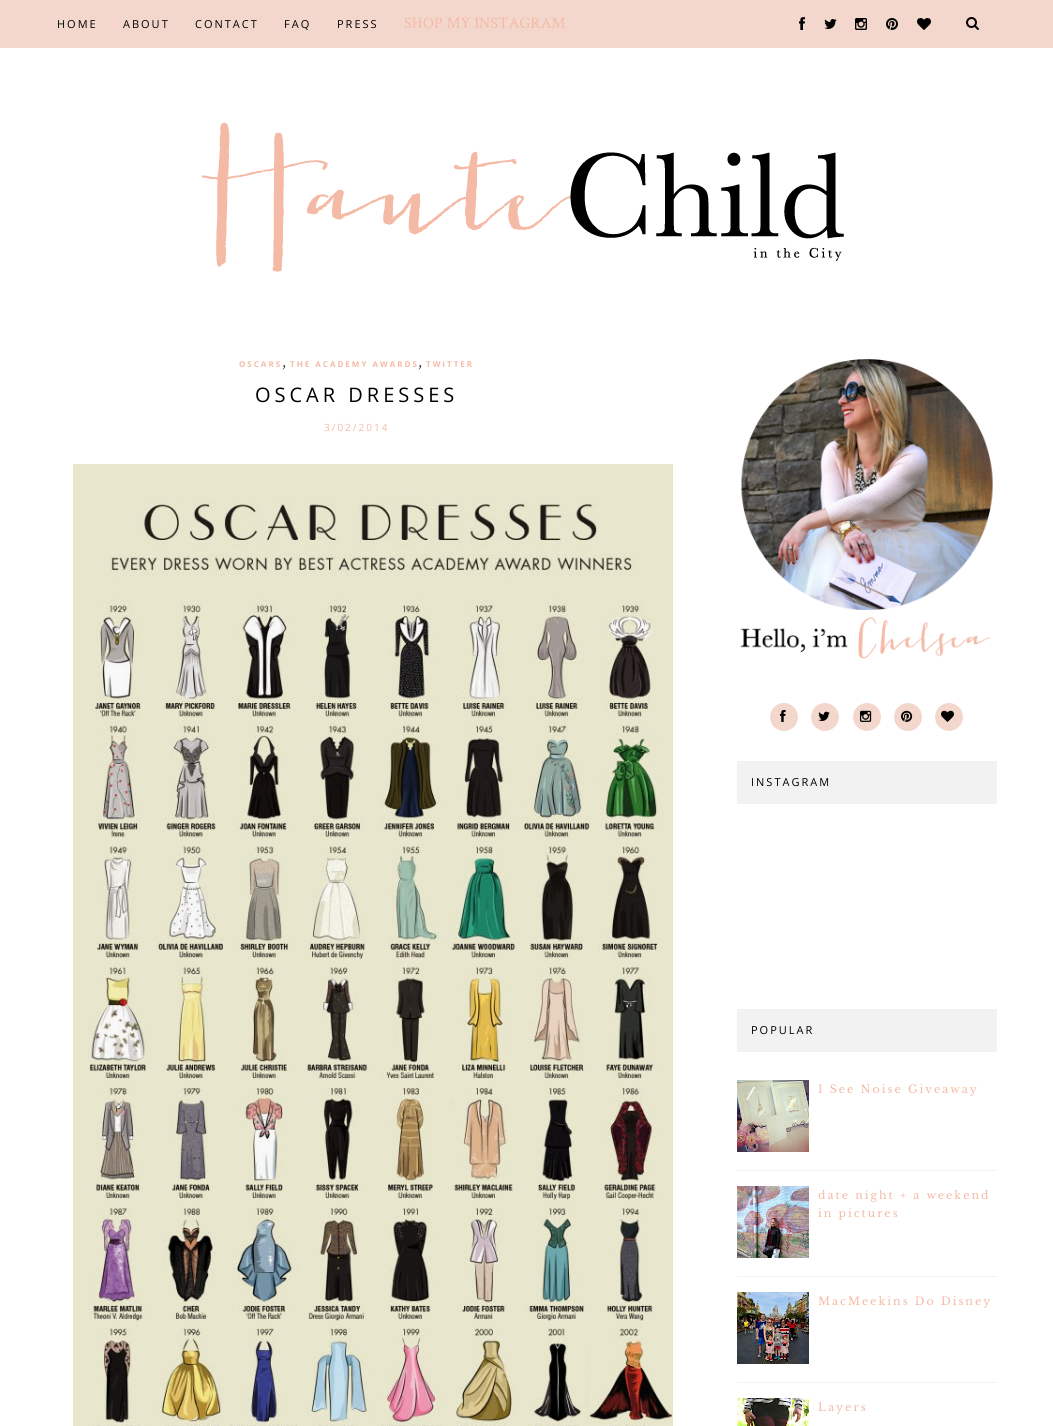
import math
import cairo



def draw_spaced(context, x, y, s, letter, word):
    context.move_to(x, y)
    for ch in s:
        context.show_text(ch)
        context.rel_move_to(letter + word * (ch == ' '), 0)


def draw_image(context, path, x, y, w, h):
    context.save()
    context.set_source_surface(cairo.ImageSurface.create_from_png(path), x, y)
    context.rectangle(x, y, w, h)
    context.fill()
    context.restore()


def draw(context):
    context.set_source_rgb(1, 1, 1)
    context.paint()
    context.set_source_rgb(243 / 255, 215 / 255, 205 / 255)
    context.rectangle(0, 0, 1053, 48)
    context.fill()
    draw_image(context, "images/1.png", 799, 17, 6, 13)
    draw_image(context, "images/2.png", 824, 19, 13, 10)
    draw_image(context, "images/3.png", 855, 18, 12, 12)
    draw_image(context, "images/4.png", 886, 18, 12, 12)
    draw_image(context, "images/5.png", 917, 18, 14, 12)
    draw_image(context, "images/6.png", 966, 17, 13, 13)
    draw_image(context, "images/7.png", 201, 122, 643, 150)
    draw_image(context, "images/8.png", 73, 464, 600, 962)
    draw_image(context, "images/9.png", 740, 359, 253, 300)
    context.arc(784, 717, 14, 0, 2 * math.pi)
    context.fill()
    draw_image(context, "images/10.png", 780, 710, 6, 12)
    context.arc(825, 717, 14, 0, 2 * math.pi)
    context.fill()
    draw_image(context, "images/11.png", 818, 711, 12, 10)
    context.arc(867, 717, 14, 0, 2 * math.pi)
    context.fill()
    draw_image(context, "images/12.png", 860, 710, 12, 12)
    context.arc(908, 717, 14, 0, 2 * math.pi)
    context.fill()
    draw_image(context, "images/13.png", 901, 710, 12, 12)
    context.arc(949, 717, 14, 0, 2 * math.pi)
    context.fill()
    draw_image(context, "images/14.png", 941, 710, 13, 12)
    context.set_source_rgb(242 / 255, 242 / 255, 242 / 255)
    context.rectangle(737, 761, 260, 43)
    context.fill()
    context.rectangle(737, 1009, 260, 43)
    context.fill()
    context.rectangle(737, 1170, 260, 1)
    context.fill()
    draw_image(context, "images/15.png", 737, 1080, 72, 72)
    context.rectangle(737, 1276, 260, 1)
    context.fill()
    draw_image(context, "images/16.png", 737, 1186, 72, 72)
    context.rectangle(737, 1382, 260, 1)
    context.fill()
    draw_image(context, "images/17.png", 737, 1292, 72, 72)
    draw_image(context, "images/18.png", 737, 1398, 72, 28)
    context.select_font_face("Open Sans")
    context.set_font_size(11)
    context.set_source_rgb(0, 0, 0)
    draw_spaced(context, 57, 28, "HOME", 2, 0)
    draw_spaced(context, 123, 28, "ABOUT", 2, 0)
    draw_spaced(context, 195, 28, "CONTACT", 2, 0)
    draw_spaced(context, 284, 28, "FAQ", 2, 0)
    draw_spaced(context, 337, 28, "PRESS", 2, 0)
    context.select_font_face("Crimson Text")
    context.set_font_size(16)
    context.set_source_rgb(244 / 255, 186 / 255, 166 / 255)
    context.move_to(404, 28)
    context.show_text("SHOP MY INSTAGRAM")
    context.select_font_face("Open Sans", cairo.FontSlant.NORMAL, cairo.FontWeight.BOLD)
    context.set_font_size(8)
    draw_spaced(context, 239, 367, "OSCARS", 2, 0)
    draw_spaced(context, 290, 367, "THE ACADEMY AWARDS", 2, 0)
    draw_spaced(context, 426, 367, "TWITTER", 2, 0)
    context.select_font_face("Crimson Text")
    context.set_font_size(16)
    context.set_source_rgb(51 / 255, 51 / 255, 51 / 255)
    context.move_to(282, 367)
    context.show_text(",")
    context.move_to(418, 367)
    context.show_text(",")
    context.select_font_face("Open Sans")
    context.set_font_size(20)
    context.set_source_rgb(0, 0, 0)
    draw_spaced(context, 255, 402, "OSCAR DRESSES", 4, 0)
    context.set_font_size(10)
    context.set_source_rgb(244 / 255, 186 / 255, 166 / 255)
    draw_spaced(context, 324, 431, "3/02/2014", 2, 0)
    context.set_font_size(11)
    context.set_source_rgb(0, 0, 0)
    draw_spaced(context, 751, 786, "INSTAGRAM", 2, 0)
    draw_spaced(context, 751, 1034, "POPULAR", 2, 0)
    context.select_font_face("Libre Baskerville")
    context.set_source_rgb(244 / 255, 186 / 255, 166 / 255)
    draw_spaced(context, 818, 1093, "I See Noise Giveaway", 2, 0)
    draw_spaced(context, 818, 1199, "date night + a weekend", 2, 0)
    draw_spaced(context, 818, 1217, "in pictures", 2, 0)
    draw_spaced(context, 818, 1305, "MacMeekins Do Disney", 2, 0)
    draw_spaced(context, 818, 1411, "Layers", 2, 0)


surface = cairo.ImageSurface(cairo.Format.RGB24, 1053, 1426)
context = cairo.Context(surface)
options = cairo.FontOptions()
options.set_hint_metrics(cairo.HintMetrics.OFF)
options.set_hint_style(cairo.HintStyle.NONE)
context.set_font_options(options)
context.set_miter_limit(4)
draw(context)
surface.write_to_png("out.png")
